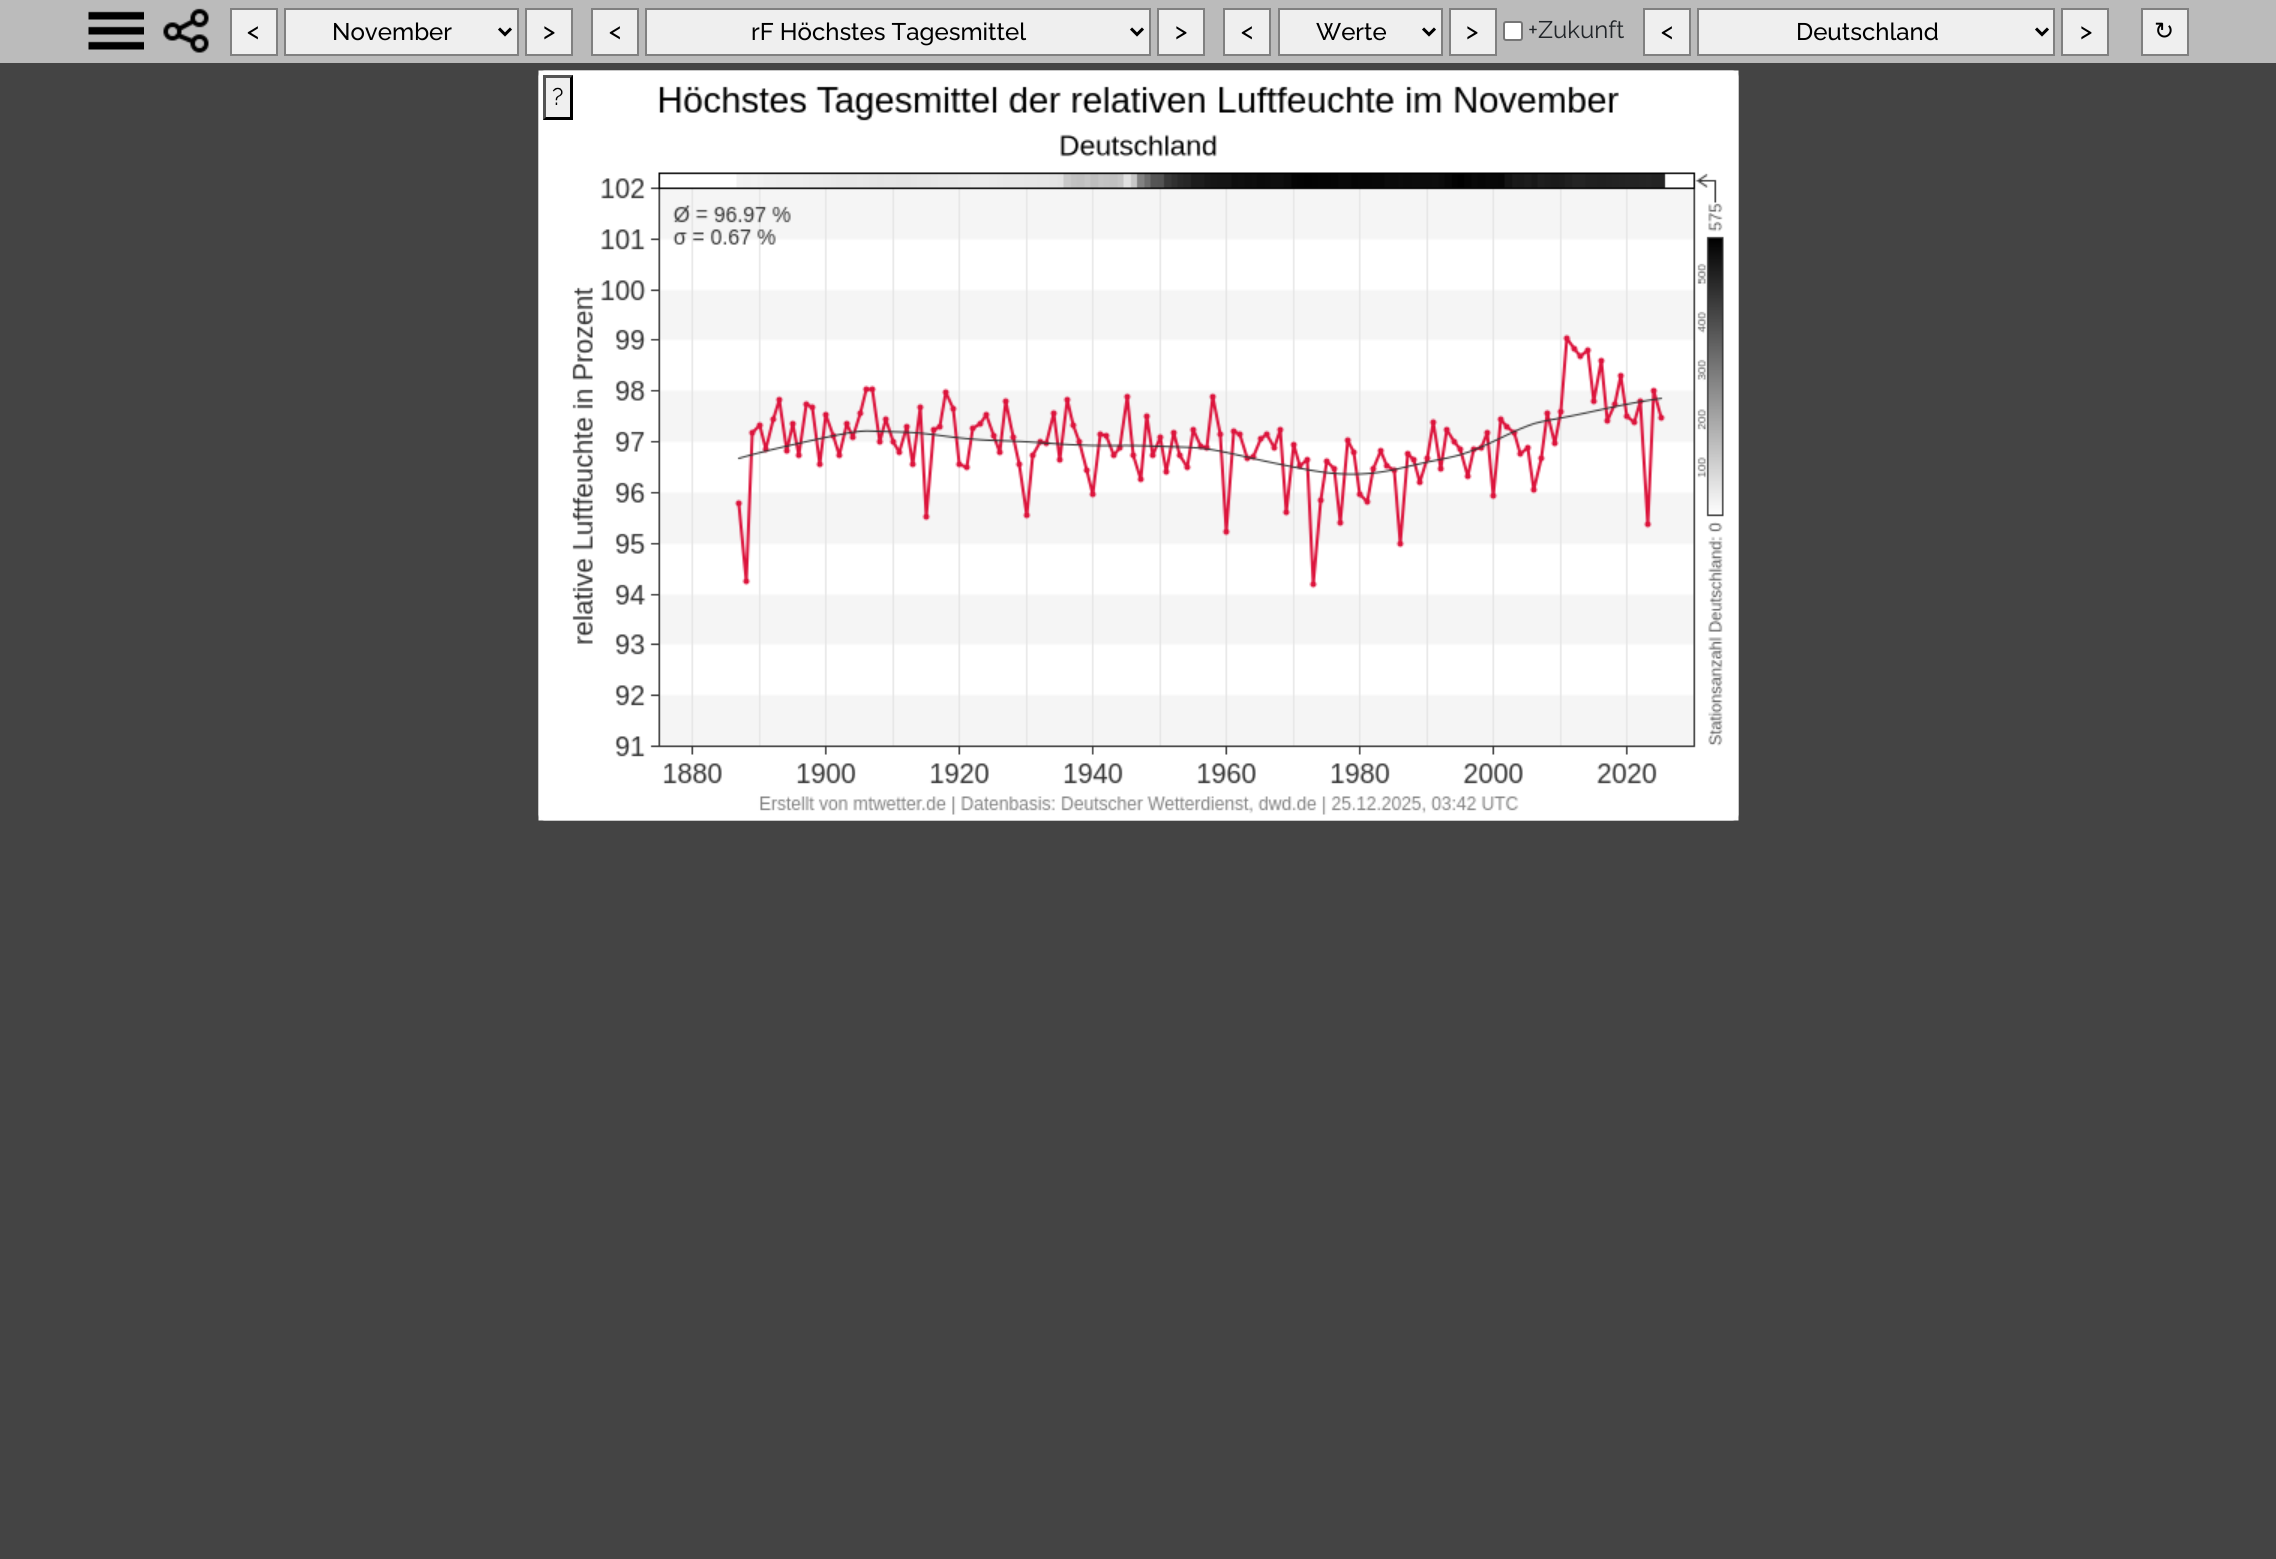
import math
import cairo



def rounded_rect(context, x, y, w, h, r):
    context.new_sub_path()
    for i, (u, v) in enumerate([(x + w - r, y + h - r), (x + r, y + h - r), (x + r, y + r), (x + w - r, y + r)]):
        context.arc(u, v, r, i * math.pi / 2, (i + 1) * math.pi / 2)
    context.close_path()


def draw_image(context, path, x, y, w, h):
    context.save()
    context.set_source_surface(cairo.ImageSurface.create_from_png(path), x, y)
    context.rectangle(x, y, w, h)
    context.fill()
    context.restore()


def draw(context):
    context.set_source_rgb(68 / 255, 68 / 255, 68 / 255)
    context.paint()
    context.set_source_rgb(187 / 255, 187 / 255, 187 / 255)
    context.rectangle(0, 0, 2276, 63)
    context.fill()
    draw_image(context, "images/1.png", 88, 11, 56, 39)
    draw_image(context, "images/2.png", 163, 8, 46, 45)
    context.set_source_rgb(239 / 255, 239 / 255, 239 / 255)
    context.rectangle(231, 9, 46, 46)
    context.fill_preserve()
    context.set_source_rgb(128 / 255, 128 / 255, 128 / 255)
    context.stroke()
    context.set_source_rgb(239 / 255, 239 / 255, 239 / 255)
    context.rectangle(285, 9, 233, 46)
    context.fill_preserve()
    context.set_source_rgb(128 / 255, 128 / 255, 128 / 255)
    context.stroke()
    context.new_path()
    context.move_to(499, 28.5)
    context.line_to(505, 34.5)
    context.line_to(511, 28.5)
    context.set_source_rgb(0, 0, 0)
    context.set_line_width(3)
    context.stroke()
    context.set_source_rgb(239 / 255, 239 / 255, 239 / 255)
    context.rectangle(526, 9, 46, 46)
    context.fill_preserve()
    context.set_source_rgb(128 / 255, 128 / 255, 128 / 255)
    context.set_line_width(2)
    context.stroke()
    context.set_source_rgb(239 / 255, 239 / 255, 239 / 255)
    context.rectangle(592, 9, 46, 46)
    context.fill_preserve()
    context.set_source_rgb(128 / 255, 128 / 255, 128 / 255)
    context.stroke()
    context.set_source_rgb(239 / 255, 239 / 255, 239 / 255)
    context.rectangle(646, 9, 504, 46)
    context.fill_preserve()
    context.set_source_rgb(128 / 255, 128 / 255, 128 / 255)
    context.stroke()
    context.new_path()
    context.move_to(1131, 28.5)
    context.line_to(1137, 34.5)
    context.line_to(1143, 28.5)
    context.set_source_rgb(0, 0, 0)
    context.set_line_width(3)
    context.stroke()
    context.set_source_rgb(239 / 255, 239 / 255, 239 / 255)
    context.rectangle(1158, 9, 46, 46)
    context.fill_preserve()
    context.set_source_rgb(128 / 255, 128 / 255, 128 / 255)
    context.set_line_width(2)
    context.stroke()
    context.set_source_rgb(239 / 255, 239 / 255, 239 / 255)
    context.rectangle(1224, 9, 46, 46)
    context.fill_preserve()
    context.set_source_rgb(128 / 255, 128 / 255, 128 / 255)
    context.stroke()
    context.set_source_rgb(239 / 255, 239 / 255, 239 / 255)
    context.rectangle(1279, 9, 163, 46)
    context.fill_preserve()
    context.set_source_rgb(128 / 255, 128 / 255, 128 / 255)
    context.stroke()
    context.new_path()
    context.move_to(1423, 28.5)
    context.line_to(1429, 34.5)
    context.line_to(1435, 28.5)
    context.set_source_rgb(0, 0, 0)
    context.set_line_width(3)
    context.stroke()
    context.set_source_rgb(239 / 255, 239 / 255, 239 / 255)
    context.rectangle(1450, 9, 46, 46)
    context.fill_preserve()
    context.set_source_rgb(128 / 255, 128 / 255, 128 / 255)
    context.set_line_width(2)
    context.stroke()
    context.set_source_rgb(1, 1, 1)
    rounded_rect(context, 1504, 22, 18, 18, 2)
    context.fill_preserve()
    context.set_source_rgb(118 / 255, 118 / 255, 118 / 255)
    context.stroke()
    context.set_source_rgb(239 / 255, 239 / 255, 239 / 255)
    context.rectangle(1644, 9, 46, 46)
    context.fill_preserve()
    context.set_source_rgb(128 / 255, 128 / 255, 128 / 255)
    context.stroke()
    context.set_source_rgb(239 / 255, 239 / 255, 239 / 255)
    context.rectangle(1698, 9, 356, 46)
    context.fill_preserve()
    context.set_source_rgb(128 / 255, 128 / 255, 128 / 255)
    context.stroke()
    context.new_path()
    context.move_to(2036, 28.5)
    context.line_to(2042, 34.5)
    context.line_to(2048, 28.5)
    context.set_source_rgb(0, 0, 0)
    context.set_line_width(3)
    context.stroke()
    context.set_source_rgb(239 / 255, 239 / 255, 239 / 255)
    context.rectangle(2062, 9, 46, 46)
    context.fill_preserve()
    context.set_source_rgb(128 / 255, 128 / 255, 128 / 255)
    context.set_line_width(2)
    context.stroke()
    context.set_source_rgb(239 / 255, 239 / 255, 239 / 255)
    context.rectangle(2142, 9, 46, 46)
    context.fill_preserve()
    context.set_source_rgb(128 / 255, 128 / 255, 128 / 255)
    context.stroke()
    draw_image(context, "images/3.png", 538, 70, 1201, 751)
    context.select_font_face("Raleway Medium")
    context.set_font_size(24)
    context.set_source_rgb(0, 0, 0)
    context.move_to(247, 39)
    context.show_text("<")
    context.move_to(332, 40)
    context.show_text("November")
    context.move_to(543, 39)
    context.show_text(">")
    context.move_to(609, 39)
    context.show_text("<")
    context.move_to(751, 40)
    context.show_text("rF Höchstes Tagesmittel")
    context.move_to(1175, 39)
    context.show_text(">")
    context.move_to(1241, 39)
    context.show_text("<")
    context.move_to(1316, 40)
    context.show_text("Werte")
    context.move_to(1466, 39)
    context.show_text(">")
    context.select_font_face("Raleway")
    context.set_source_rgb(33 / 255, 37 / 255, 41 / 255)
    context.move_to(1528, 38)
    context.show_text("+Zukunft")
    context.select_font_face("Raleway Medium")
    context.set_source_rgb(0, 0, 0)
    context.move_to(1661, 39)
    context.show_text("<")
    context.move_to(1796, 40)
    context.show_text("Deutschland")
    context.move_to(2080, 39)
    context.show_text(">")
    context.select_font_face("DejaVu Sans")
    context.move_to(2154, 39)
    context.show_text("↻")


surface = cairo.ImageSurface(cairo.Format.RGB24, 2276, 1559)
context = cairo.Context(surface)
options = cairo.FontOptions()
options.set_hint_metrics(cairo.HintMetrics.OFF)
options.set_hint_style(cairo.HintStyle.NONE)
context.set_font_options(options)
context.set_miter_limit(4)
draw(context)
surface.write_to_png("out.png")
